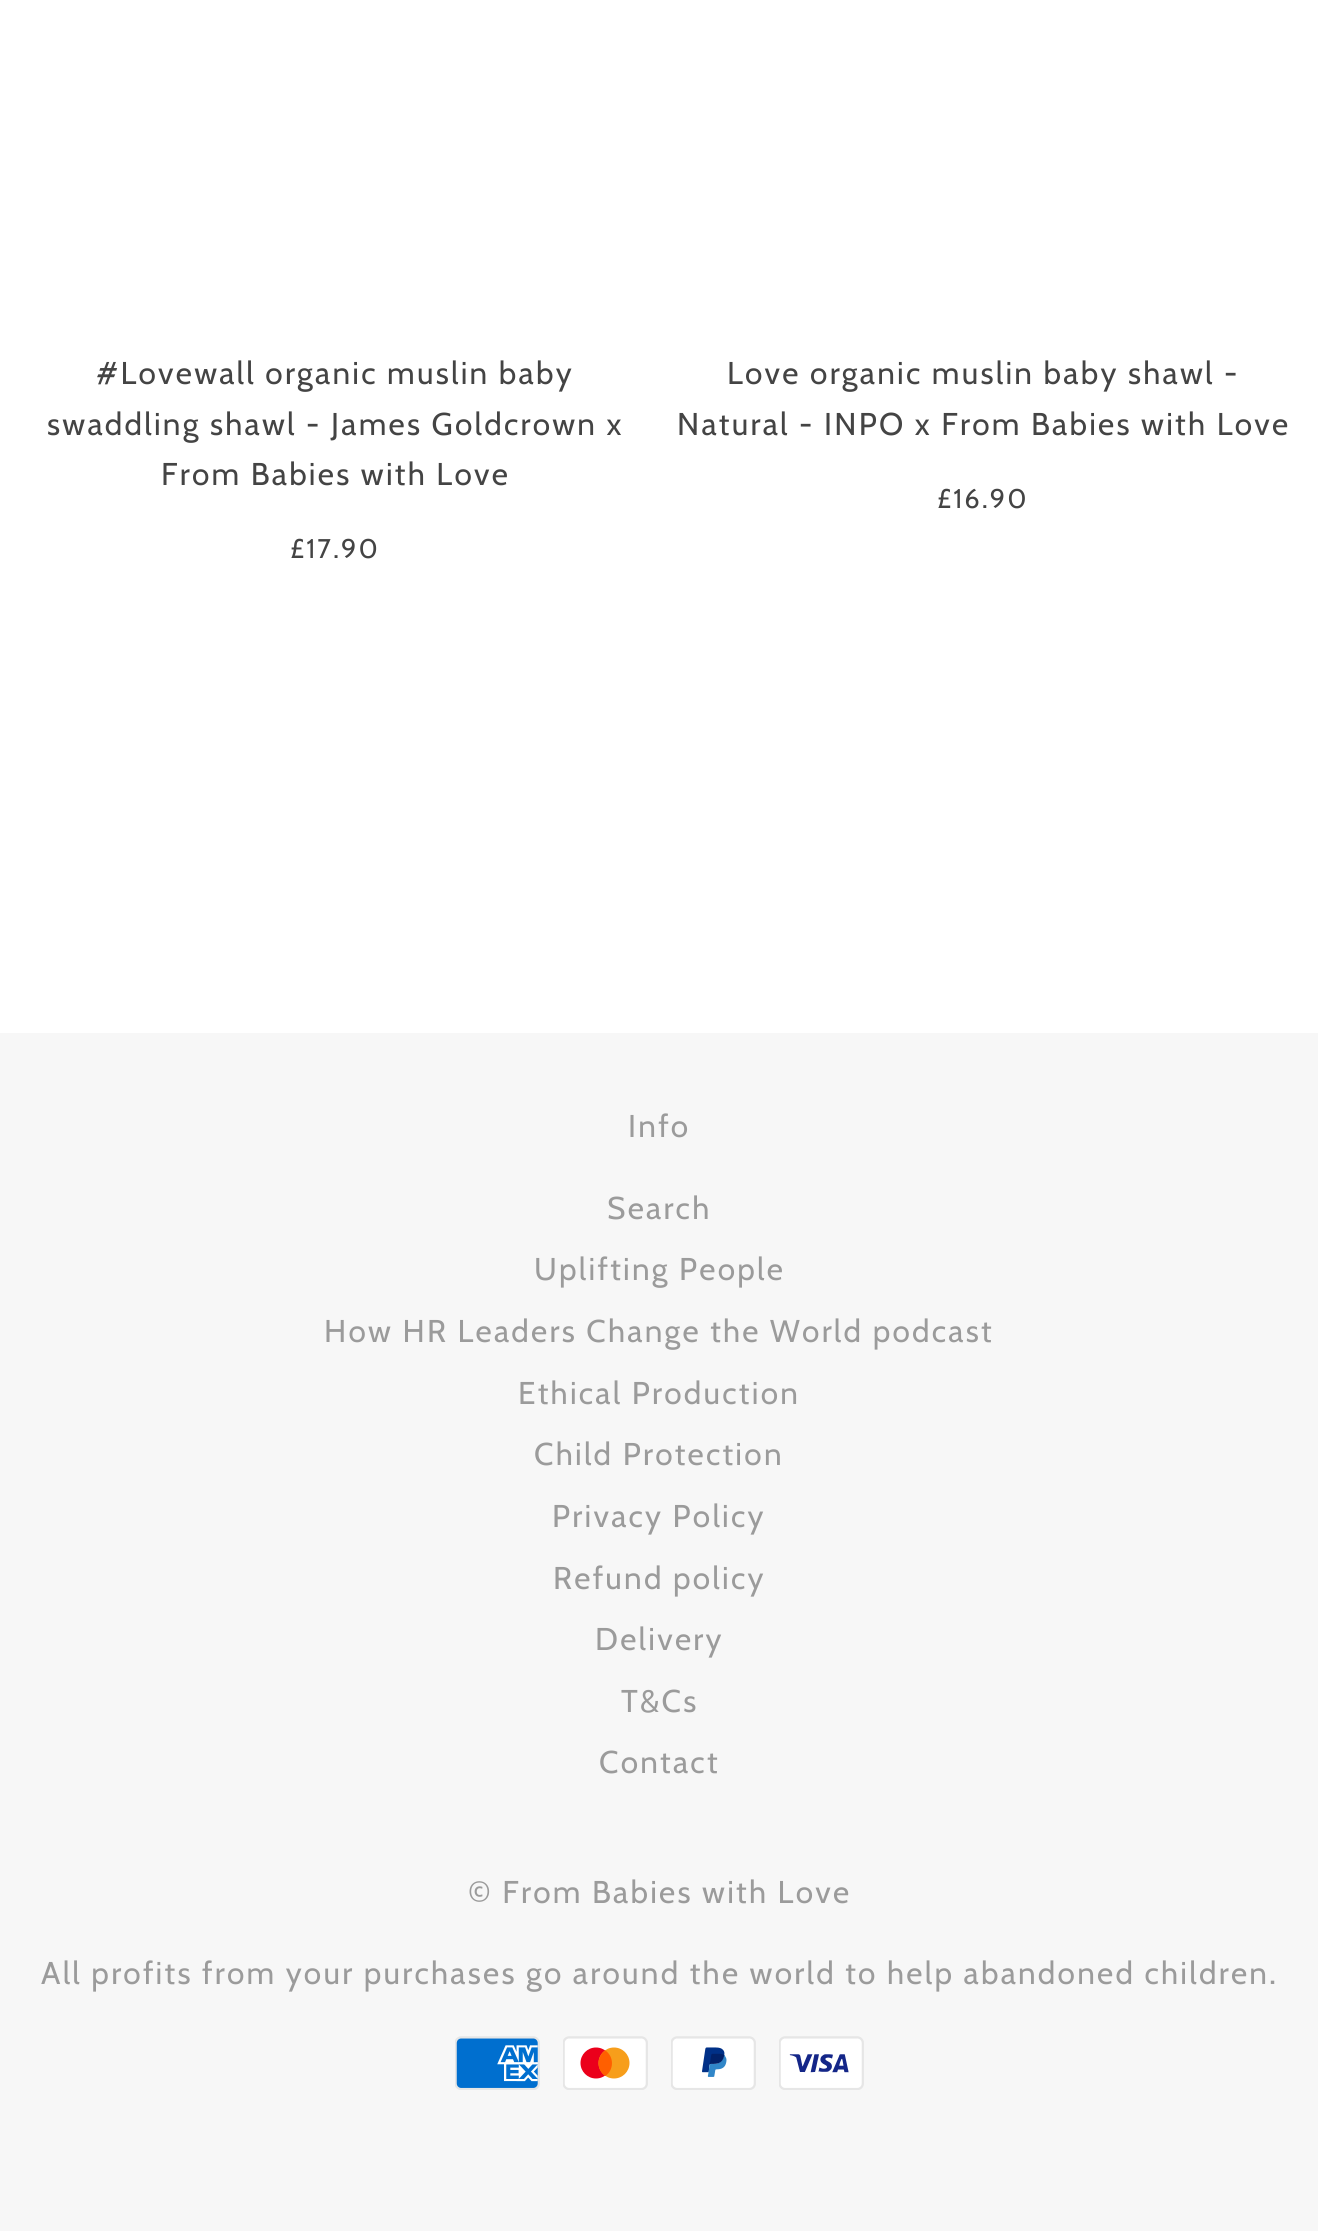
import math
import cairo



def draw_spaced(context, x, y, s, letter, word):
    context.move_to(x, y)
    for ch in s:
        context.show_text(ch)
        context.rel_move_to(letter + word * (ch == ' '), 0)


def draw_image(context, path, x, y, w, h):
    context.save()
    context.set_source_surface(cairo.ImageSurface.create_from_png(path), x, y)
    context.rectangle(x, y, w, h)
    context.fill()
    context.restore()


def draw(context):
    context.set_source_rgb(1, 1, 1)
    context.paint()
    context.set_source_rgb(247 / 255, 247 / 255, 247 / 255)
    context.rectangle(0, 1033, 1318, 1198)
    context.fill()
    draw_image(context, "images/1.png", 455, 2036, 85, 54)
    draw_image(context, "images/2.png", 563, 2036, 85, 54)
    draw_image(context, "images/3.png", 671, 2036, 85, 54)
    draw_image(context, "images/4.png", 779, 2036, 85, 54)
    context.select_font_face("Cabin")
    context.set_font_size(31.5)
    context.set_source_rgb(68 / 255, 68 / 255, 68 / 255)
    draw_spaced(context, 96, 384, "#Lovewall organic muslin baby", 2.25, 0)
    draw_spaced(context, 47, 435, "swaddling shawl - James Goldcrown x", 2.25, 0)
    draw_spaced(context, 161, 485, "From Babies with Love", 2.25, 0)
    context.set_font_size(27)
    draw_spaced(context, 290, 558, "£17.90", 2.25, 0)
    context.set_font_size(31.5)
    draw_spaced(context, 727, 384, "Love organic muslin baby shawl -", 2.25, 0)
    draw_spaced(context, 677, 435, "Natural - INPO x From Babies with Love", 2.25, 0)
    context.set_font_size(27)
    draw_spaced(context, 937, 508, "£16.90", 2.25, 0)
    context.set_font_size(31.5)
    context.set_source_rgb(155 / 255, 155 / 255, 155 / 255)
    draw_spaced(context, 628, 1137, "Info", 2.25, 0)
    draw_spaced(context, 607, 1219, "Search", 2.25, 0)
    draw_spaced(context, 534, 1280, "Uplifting People", 2.25, 0)
    draw_spaced(context, 324, 1342, "How HR Leaders Change the World podcast", 2.25, 0)
    draw_spaced(context, 518, 1404, "Ethical Production", 2.25, 0)
    draw_spaced(context, 534, 1465, "Child Protection", 2.25, 0)
    draw_spaced(context, 552, 1527, "Privacy Policy", 2.25, 0)
    draw_spaced(context, 553, 1589, "Refund policy", 2.25, 0)
    draw_spaced(context, 595, 1650, "Delivery", 2.25, 0)
    draw_spaced(context, 621, 1712, "T&Cs", 2.25, 0)
    draw_spaced(context, 599, 1773, "Contact", 2.25, 0)
    draw_spaced(context, 468, 1903, "© From Babies with Love", 2.25, 0)
    draw_spaced(context, 41, 1984, "All profits from your purchases go around the world to help abandoned children.", 2.25, 0)


surface = cairo.ImageSurface(cairo.Format.RGB24, 1318, 2231)
context = cairo.Context(surface)
options = cairo.FontOptions()
options.set_hint_metrics(cairo.HintMetrics.OFF)
options.set_hint_style(cairo.HintStyle.NONE)
context.set_font_options(options)
context.set_miter_limit(4)
draw(context)
surface.write_to_png("out.png")
